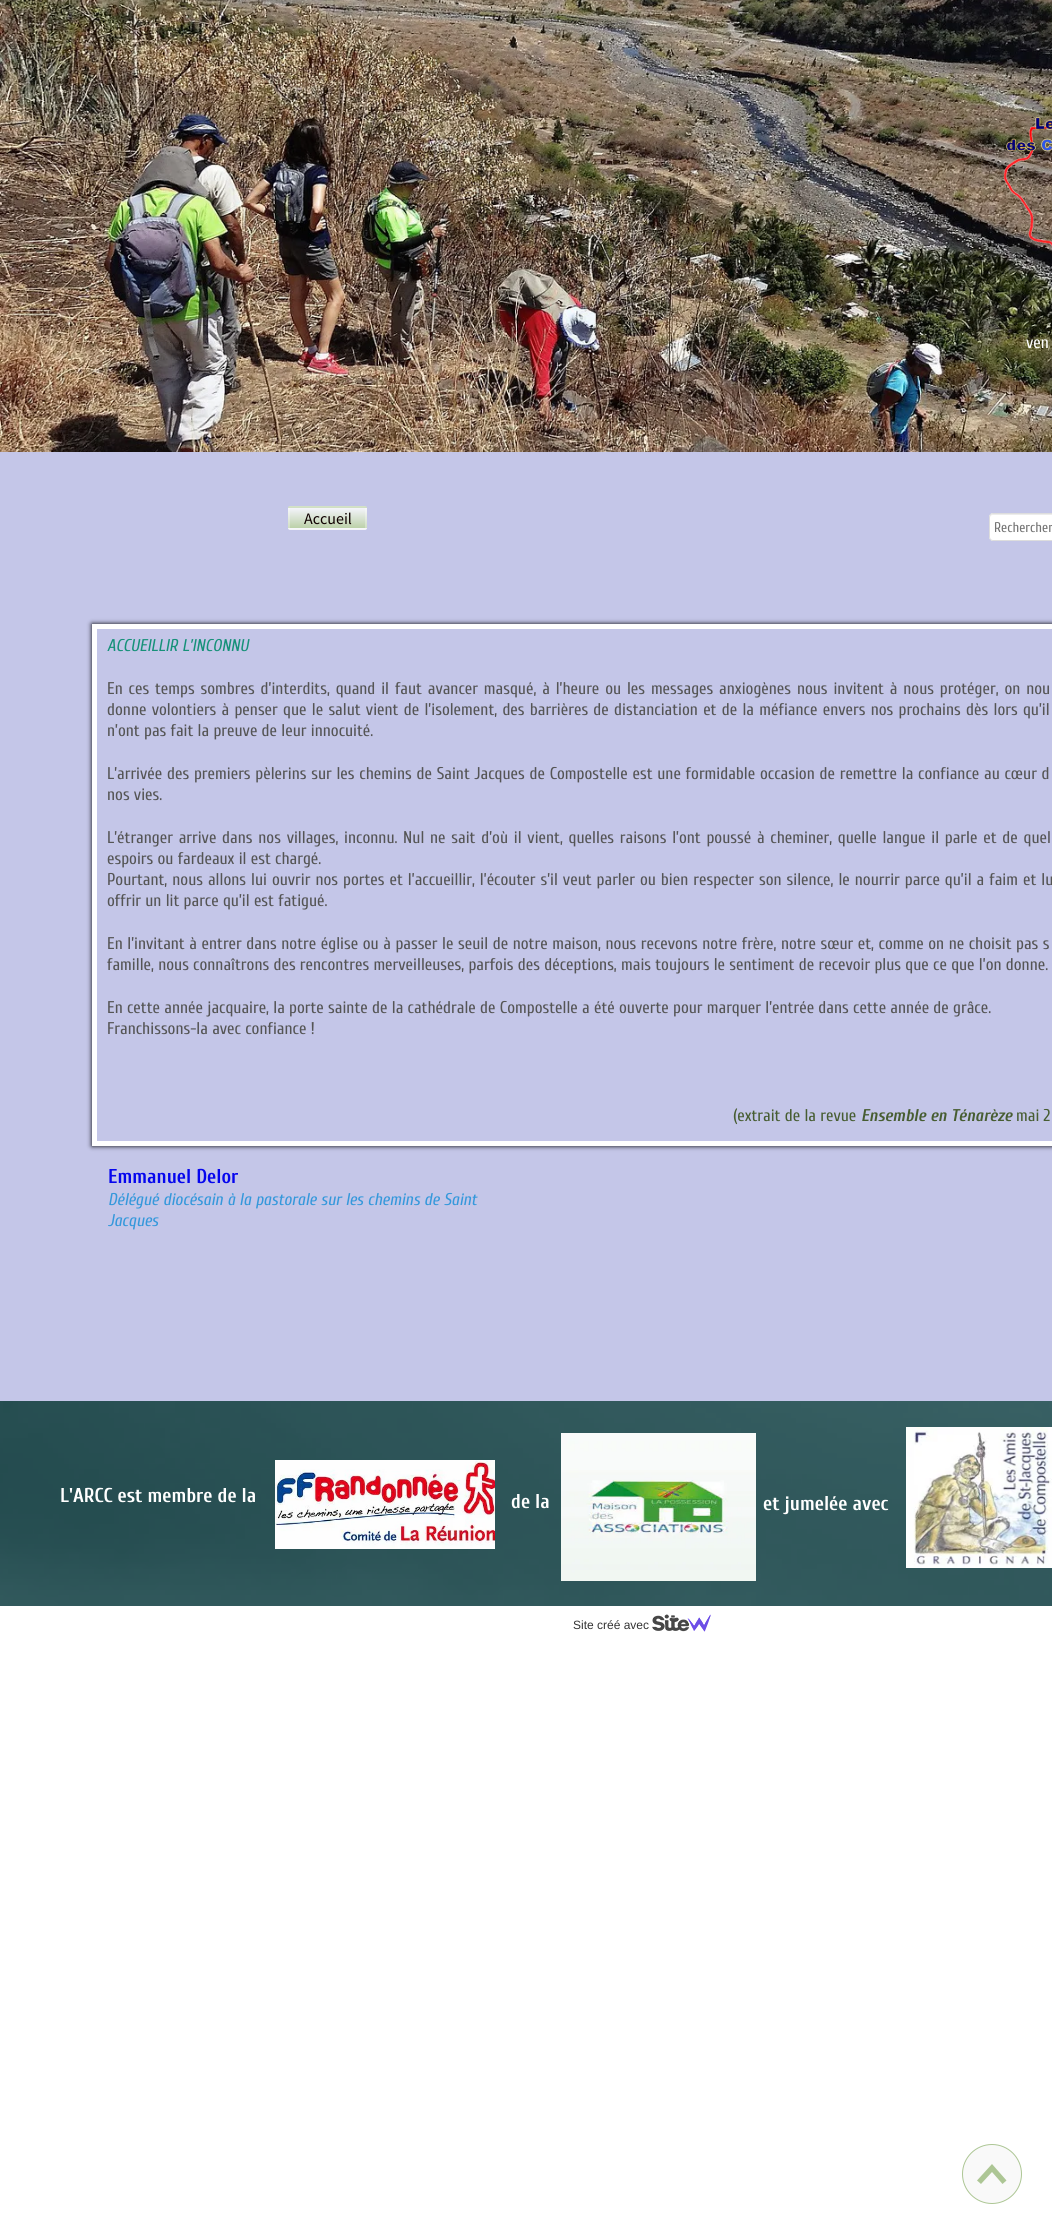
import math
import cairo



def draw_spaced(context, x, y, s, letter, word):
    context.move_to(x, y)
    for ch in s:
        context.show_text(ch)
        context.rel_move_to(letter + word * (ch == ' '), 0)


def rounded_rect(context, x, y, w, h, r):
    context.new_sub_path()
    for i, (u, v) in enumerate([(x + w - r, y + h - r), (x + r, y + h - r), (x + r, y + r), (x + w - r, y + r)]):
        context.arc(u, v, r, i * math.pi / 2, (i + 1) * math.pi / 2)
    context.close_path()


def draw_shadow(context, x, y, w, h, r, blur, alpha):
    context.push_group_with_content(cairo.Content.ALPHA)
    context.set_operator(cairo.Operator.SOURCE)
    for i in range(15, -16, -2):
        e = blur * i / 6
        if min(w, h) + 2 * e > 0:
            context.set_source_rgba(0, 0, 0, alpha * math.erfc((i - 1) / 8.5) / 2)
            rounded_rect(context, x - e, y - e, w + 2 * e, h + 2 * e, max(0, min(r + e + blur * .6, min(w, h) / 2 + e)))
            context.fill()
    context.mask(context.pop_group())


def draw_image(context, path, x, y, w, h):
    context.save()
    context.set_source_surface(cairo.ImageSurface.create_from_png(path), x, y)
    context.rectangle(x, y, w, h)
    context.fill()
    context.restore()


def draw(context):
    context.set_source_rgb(1, 1, 1)
    context.paint()
    context.set_source_rgb(196 / 255, 198 / 255, 232 / 255)
    context.rectangle(0, 452, 1052, 949)
    context.fill()
    draw_image(context, "images/1.png", 0, 0, 1052, 452)
    draw_image(context, "images/2.png", 1003, 117, 49, 130)
    gradient = cairo.LinearGradient(328, 488, 328, 508)
    gradient.add_color_stop_rgba(0, 244 / 255, 244 / 255, 251 / 255, 1)
    gradient.add_color_stop_rgba(1, 188 / 255, 209 / 255, 169 / 255, 1)
    context.set_source(gradient)
    context.new_path()
    context.move_to(290, 506)
    context.line_to(365, 506)
    context.curve_to(366, 506, 367, 507, 367, 508)
    context.line_to(288, 508)
    context.curve_to(288, 507, 289, 506, 290, 506)
    context.close_path()
    context.fill()
    gradient = cairo.LinearGradient(328, 508, 328, 528)
    gradient.add_color_stop_rgba(0, 244 / 255, 244 / 255, 251 / 255, 1)
    gradient.add_color_stop_rgba(1, 188 / 255, 209 / 255, 169 / 255, 1)
    context.set_source(gradient)
    context.rectangle(288, 508, 79, 20)
    context.fill()
    gradient = cairo.LinearGradient(328, 528, 328, 548)
    gradient.add_color_stop_rgba(0, 244 / 255, 244 / 255, 251 / 255, 1)
    gradient.add_color_stop_rgba(1, 188 / 255, 209 / 255, 169 / 255, 1)
    context.set_source(gradient)
    context.new_path()
    context.move_to(288, 528)
    context.line_to(367, 528)
    context.curve_to(367, 529, 366, 530, 365, 530)
    context.line_to(290, 530)
    context.curve_to(289, 530, 288, 529, 288, 528)
    context.close_path()
    context.fill()
    rounded_rect(context, 289, 507, 77, 22, 1)
    context.set_source_rgba(1, 1, 1, 0.3)
    context.stroke()
    context.set_source_rgb(1, 1, 1)
    context.new_path()
    context.move_to(993, 513)
    context.line_to(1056, 513)
    context.line_to(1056, 541)
    context.line_to(993, 541)
    context.curve_to(991, 541, 989, 539, 989, 537)
    context.line_to(989, 517)
    context.curve_to(989, 515, 991, 513, 993, 513)
    context.close_path()
    context.fill()
    context.set_source_rgb(236 / 255, 236 / 255, 236 / 255)
    context.new_path()
    context.move_to(993, 515)
    context.line_to(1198, 515)
    context.line_to(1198, 514)
    context.line_to(993, 514)
    context.curve_to(991, 514, 990, 515, 990, 517)
    context.line_to(990, 518)
    context.curve_to(990, 516, 991, 515, 993, 515)
    context.close_path()
    context.fill()
    context.new_path()
    context.move_to(993, 513.5)
    context.line_to(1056.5, 513.5)
    context.line_to(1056.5, 540.5)
    context.line_to(993, 540.5)
    context.curve_to(991, 540.5, 989.5, 539, 989.5, 537)
    context.line_to(989.5, 517)
    context.curve_to(989.5, 515, 991, 513.5, 993, 513.5)
    context.close_path()
    context.set_source_rgb(221 / 255, 221 / 255, 221 / 255)
    context.set_line_width(1)
    context.stroke()
    context.save()
    context.set_fill_rule(cairo.FillRule.EVEN_ODD)
    context.new_path()
    context.move_to(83, 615)
    context.line_to(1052, 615)
    context.line_to(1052, 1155)
    context.line_to(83, 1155)
    context.close_path()
    context.move_to(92, 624)
    context.line_to(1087, 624)
    context.line_to(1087, 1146)
    context.line_to(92, 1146)
    context.close_path()
    context.clip()
    context.set_source_rgb(0, 0, 0)
    draw_shadow(context, 92, 624, 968, 522, 0, 2.5, 1)
    context.restore()
    context.rectangle(94.5, 626.5, 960, 517)
    context.set_source_rgb(1, 1, 1)
    context.set_line_width(5)
    context.stroke()
    draw_image(context, "images/3.png", 0, 1401, 1052, 205)
    draw_image(context, "images/4.png", 275, 1460, 220, 89)
    draw_image(context, "images/5.png", 561, 1433, 195, 148)
    draw_image(context, "images/6.png", 906, 1427, 146, 141)
    context.set_source_rgb(249 / 255, 249 / 255, 249 / 255)
    context.arc(992, 2174, 29.5, 0, 2 * math.pi)
    context.fill_preserve()
    context.set_source_rgb(173 / 255, 198 / 255, 149 / 255)
    context.set_line_width(1)
    context.stroke()
    context.new_path()
    context.move_to(992, 2164)
    context.line_to(1006.5, 2180.5)
    context.line_to(1002.5, 2184)
    context.line_to(992, 2172)
    context.line_to(981, 2184)
    context.line_to(977, 2180.5)
    context.close_path()
    context.fill()
    draw_image(context, "images/7.png", 652, 1614, 59, 18)
    context.select_font_face("Cuprum")
    context.set_font_size(17)
    context.set_source_rgb(1, 1, 1)
    context.move_to(1026, 348)
    context.show_text("ven")
    context.select_font_face("Source Sans Pro")
    context.set_font_size(16)
    context.set_source_rgb(15 / 255, 0, 0)
    context.move_to(304, 524)
    context.show_text("Accueil")
    context.select_font_face("Cuprum")
    context.set_font_size(14)
    context.set_source_rgb(117 / 255, 117 / 255, 117 / 255)
    context.move_to(994, 532)
    context.show_text("Rechercher")
    context.select_font_face("Cuprum", cairo.FontSlant.ITALIC)
    context.set_font_size(17)
    context.set_source_rgb(22 / 255, 145 / 255, 121 / 255)
    context.move_to(107, 651)
    context.show_text("ACCUEILLIR L’INCONNU")
    context.select_font_face("Cuprum")
    context.set_source_rgb(85 / 255, 85 / 255, 85 / 255)
    draw_spaced(context, 107, 694, "En ces temps sombres d’interdits, quand il faut avancer masqué, à l’heure ou les messages anxiogènes nous invitent à nous protéger, on nou", 0, 1.6)
    draw_spaced(context, 107, 715, "donne volontiers à penser que le salut vient de l’isolement, des barrières de distanciation et de la méfiance envers nos prochains dès lors qu’il", 0, 1)
    context.move_to(107, 736)
    context.show_text("n’ont pas fait la preuve de leur innocuité.")
    draw_spaced(context, 107, 779, "L’arrivée des premiers pèlerins sur les chemins de Saint Jacques de Compostelle est une formidable occasion de remettre la confiance au cœur d", 0, 0.5)
    context.move_to(107, 800)
    context.show_text("nos vies.")
    draw_spaced(context, 107, 843, "L’étranger arrive dans nos villages, inconnu. Nul ne sait d’où il vient, quelles raisons l’ont poussé à cheminer, quelle langue il parle et de quel", 0, 1.5)
    context.move_to(107, 864)
    context.show_text("espoirs ou fardeaux il est chargé.")
    draw_spaced(context, 107, 885, "Pourtant, nous allons lui ouvrir nos portes et l’accueillir, l’écouter s’il veut parler ou bien respecter son silence, le nourrir parce qu’il a faim et lu", 0, 0.75)
    context.move_to(107, 906)
    context.show_text("offrir un lit parce qu’il est fatigué.")
    draw_spaced(context, 107, 949, "En l’invitant à entrer dans notre église ou à passer le seuil de notre maison, nous recevons notre frère, notre sœur et, comme on ne choisit pas s", 0, 0.3)
    context.move_to(107, 970)
    context.show_text("famille, nous connaîtrons des rencontres merveilleuses, parfois des déceptions, mais toujours le sentiment de recevoir plus que ce que l’on donne.")
    context.move_to(107, 1013)
    context.show_text("En cette année jacquaire, la porte sainte de la cathédrale de Compostelle a été ouverte pour marquer l’entrée dans cette année de grâce.")
    context.move_to(107, 1034)
    context.show_text("Franchissons-la avec confiance !")
    context.set_source_rgb(71 / 255, 93 / 255, 50 / 255)
    context.move_to(733, 1121)
    context.show_text("(extrait de la revue")
    context.select_font_face("Cuprum", cairo.FontSlant.ITALIC, cairo.FontWeight.BOLD)
    context.move_to(861, 1121)
    context.show_text("Ensemble en Ténarèze")
    context.select_font_face("Cuprum")
    context.move_to(1016, 1121)
    context.show_text("mai 2")
    context.select_font_face("Cuprum", cairo.FontSlant.NORMAL, cairo.FontWeight.BOLD)
    context.set_font_size(20)
    context.set_source_rgb(6 / 255, 6 / 255, 238 / 255)
    context.move_to(108, 1183)
    context.show_text("Emmanuel Delor")
    context.select_font_face("Cuprum", cairo.FontSlant.ITALIC)
    context.set_font_size(17)
    context.set_source_rgb(53 / 255, 152 / 255, 219 / 255)
    context.move_to(108, 1205)
    context.show_text("Délégué diocésain à la pastorale sur les chemins de Saint")
    context.move_to(108, 1226)
    context.show_text("Jacques")
    context.select_font_face("Cuprum", cairo.FontSlant.NORMAL, cairo.FontWeight.BOLD)
    context.set_font_size(20)
    context.set_source_rgb(1, 1, 1)
    context.move_to(60, 1502)
    context.show_text("L'ARCC est membre de la")
    context.move_to(511, 1508)
    context.show_text("de la")
    context.move_to(763, 1510)
    context.show_text("et jumelée avec")
    context.select_font_face("Liberation Sans")
    context.set_font_size(12)
    context.set_source_rgb(51 / 255, 51 / 255, 51 / 255)
    context.move_to(573, 1629)
    context.show_text("Site créé avec")


surface = cairo.ImageSurface(cairo.Format.RGB24, 1052, 2234)
context = cairo.Context(surface)
options = cairo.FontOptions()
options.set_hint_metrics(cairo.HintMetrics.OFF)
options.set_hint_style(cairo.HintStyle.NONE)
context.set_font_options(options)
context.set_miter_limit(4)
draw(context)
surface.write_to_png("out.png")
